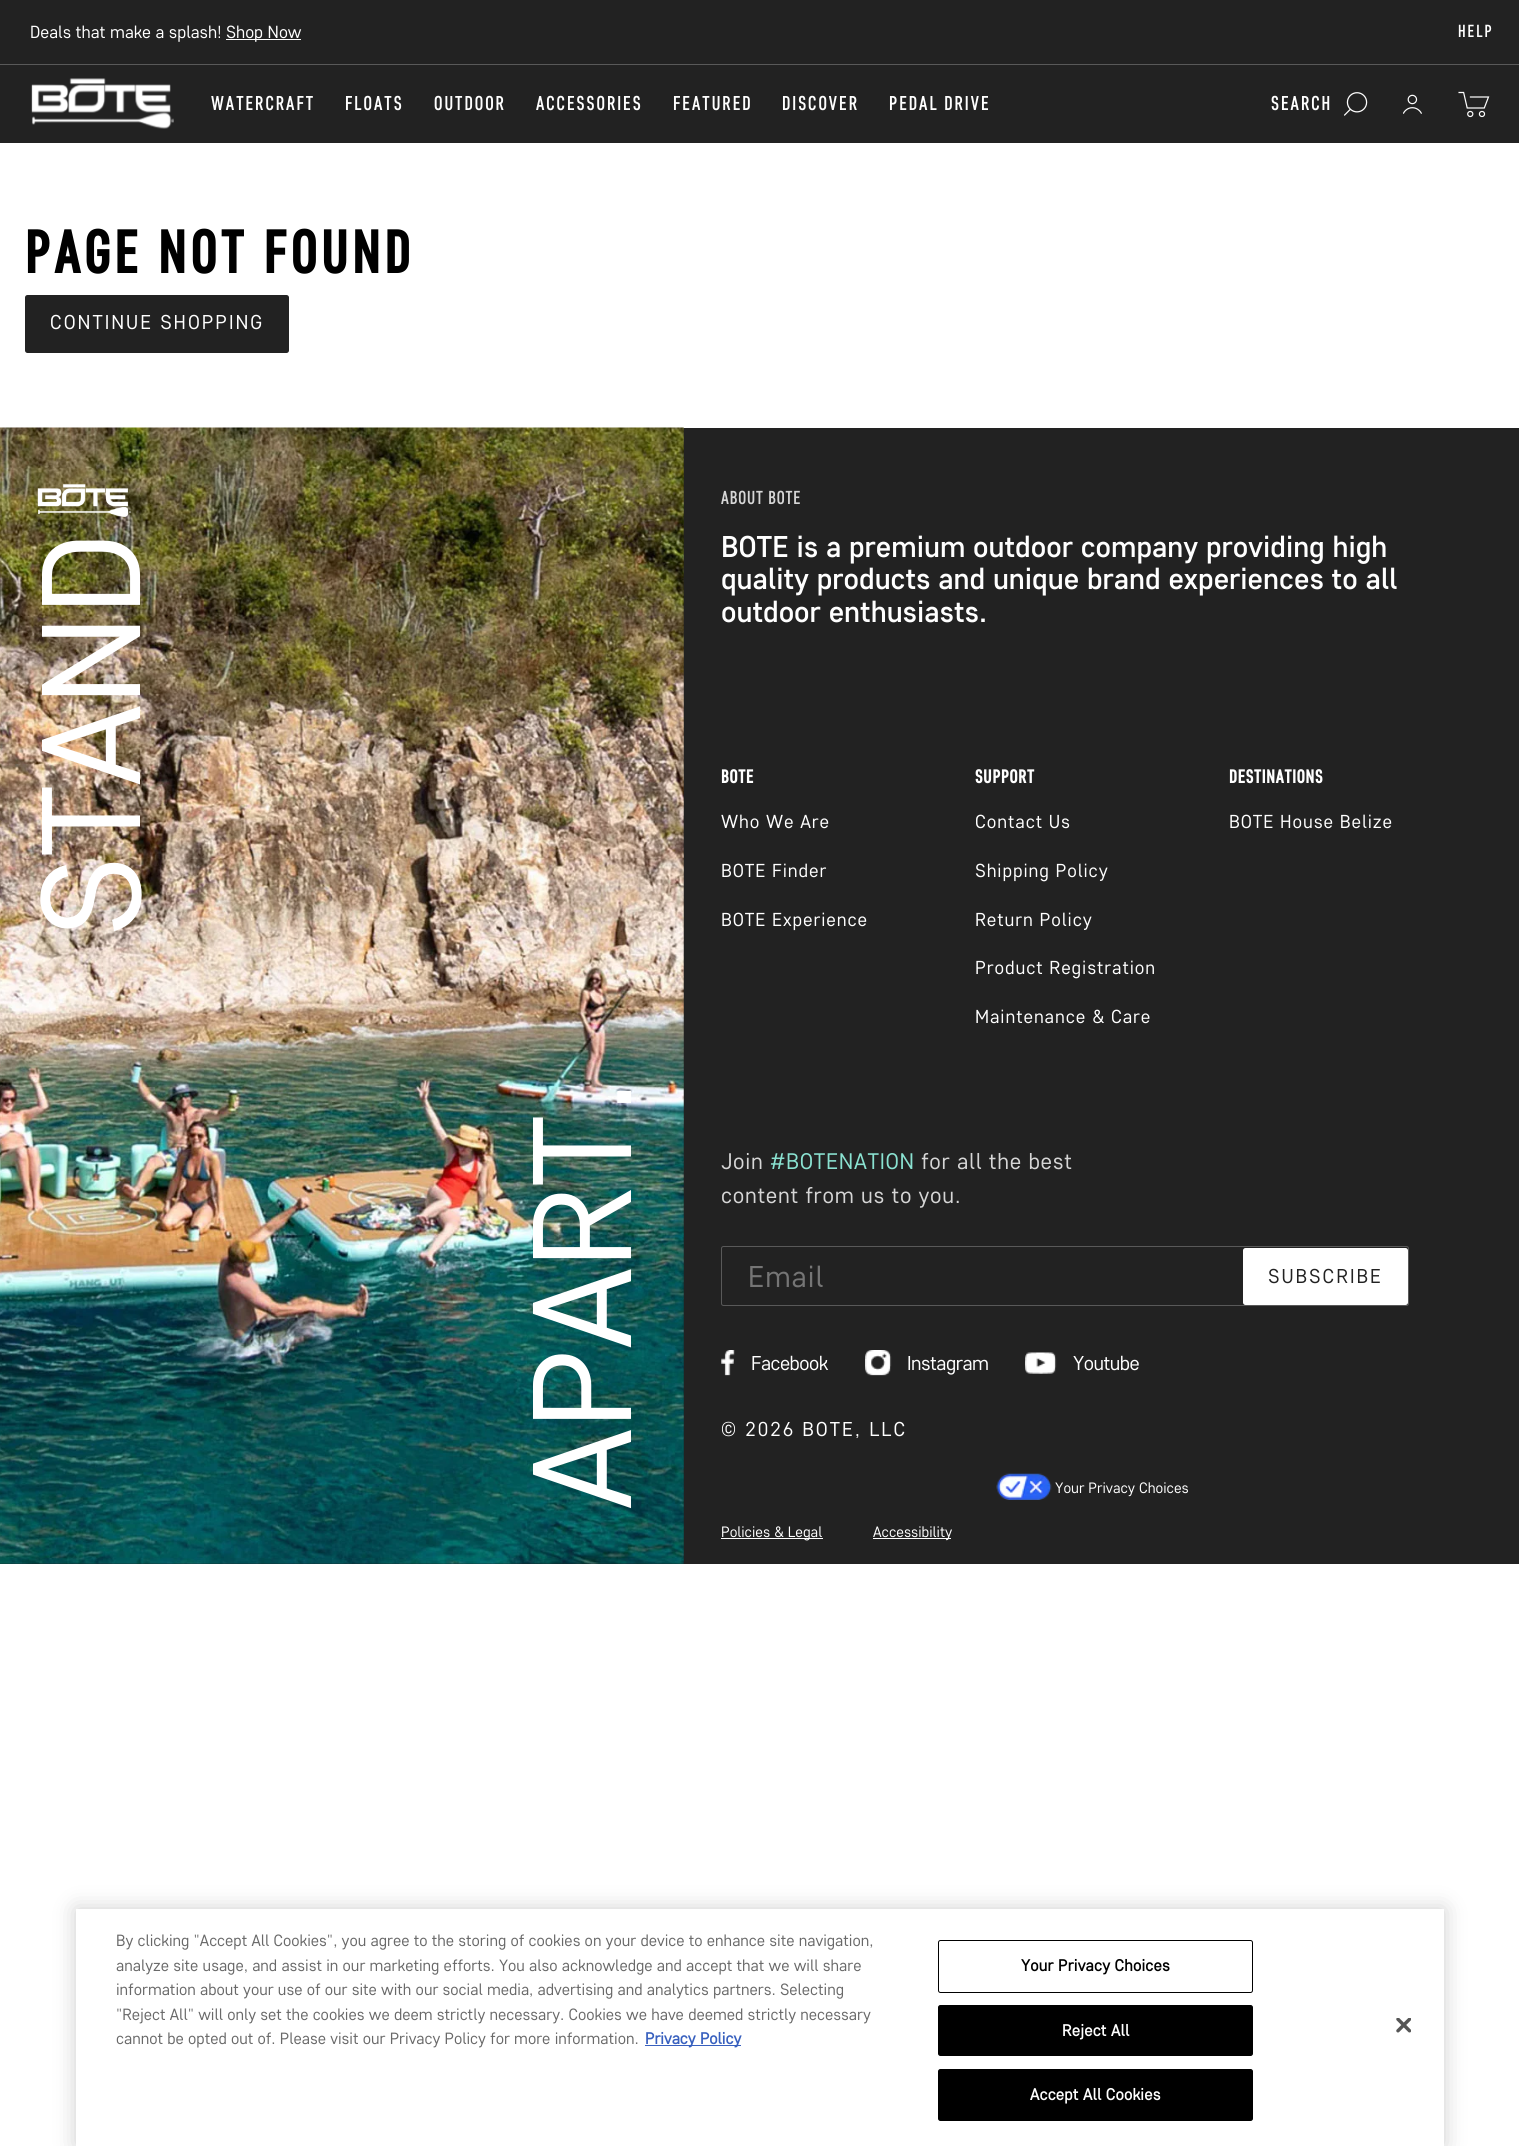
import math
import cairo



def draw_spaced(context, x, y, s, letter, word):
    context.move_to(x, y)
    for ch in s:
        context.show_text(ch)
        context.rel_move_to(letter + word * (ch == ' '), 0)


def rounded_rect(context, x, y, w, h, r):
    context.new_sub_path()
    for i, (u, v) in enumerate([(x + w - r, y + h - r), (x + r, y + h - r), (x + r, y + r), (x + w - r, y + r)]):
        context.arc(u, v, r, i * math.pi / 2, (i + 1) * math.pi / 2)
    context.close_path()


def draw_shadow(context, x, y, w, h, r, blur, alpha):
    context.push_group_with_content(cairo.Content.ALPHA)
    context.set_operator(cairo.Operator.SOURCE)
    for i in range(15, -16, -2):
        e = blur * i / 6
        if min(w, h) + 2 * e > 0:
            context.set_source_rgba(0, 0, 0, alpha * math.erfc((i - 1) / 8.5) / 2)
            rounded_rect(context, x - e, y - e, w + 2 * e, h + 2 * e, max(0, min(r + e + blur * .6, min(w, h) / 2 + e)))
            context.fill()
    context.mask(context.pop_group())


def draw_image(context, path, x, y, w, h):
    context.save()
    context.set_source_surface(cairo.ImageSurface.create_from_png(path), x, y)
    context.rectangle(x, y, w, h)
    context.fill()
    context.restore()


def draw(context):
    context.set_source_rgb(1, 1, 1)
    context.paint()
    context.set_source_rgb(34 / 255, 34 / 255, 34 / 255)
    context.rectangle(0, 0, 1519, 64)
    context.fill()
    context.set_source_rgb(89 / 255, 89 / 255, 89 / 255)
    context.rectangle(0, 64, 1519, 1)
    context.fill()
    context.set_source_rgb(1, 1, 1)
    context.rectangle(226, 39, 75, 1)
    context.fill()
    context.set_source_rgb(34 / 255, 34 / 255, 34 / 255)
    context.rectangle(0, 65, 1519, 78)
    context.fill()
    draw_image(context, "images/1.png", 31, 78, 143, 51)
    draw_image(context, "images/2.png", 1344, 92, 24, 24)
    draw_image(context, "images/3.png", 1403, 94, 19, 20)
    draw_image(context, "images/4.png", 1458, 91, 32, 27)
    rounded_rect(context, 25, 295, 264, 58, 2.5)
    context.fill()
    context.rectangle(0, 428, 1519, 1136)
    context.fill()
    draw_image(context, "images/5.png", 0, 427, 684, 1137)
    draw_image(context, "images/6.png", 37, 483, 95, 34)
    rounded_rect(context, 721.5, 1246.5, 687, 59, 2)
    context.set_source_rgb(89 / 255, 89 / 255, 89 / 255)
    context.set_line_width(1)
    context.stroke()
    context.set_source_rgb(1, 1, 1)
    rounded_rect(context, 1243, 1248, 165, 57, 2.5)
    context.fill()
    draw_image(context, "images/7.png", 721, 1350, 14, 26)
    draw_image(context, "images/8.png", 865, 1350, 27, 26)
    draw_image(context, "images/9.png", 1025, 1352, 32, 22)
    draw_image(context, "images/10.png", 996, 1473, 56, 27)
    context.rectangle(721, 1538, 102, 1)
    context.fill()
    context.rectangle(873, 1538, 78, 1)
    context.fill()
    context.set_source_rgb(0, 0, 0)
    draw_shadow(context, 76, 1909, 1368, 237, 0, 11, 0.2)
    context.set_source_rgb(1, 1, 1)
    context.rectangle(76, 1909, 1368, 237)
    context.fill()
    context.set_source_rgb(56 / 255, 96 / 255, 190 / 255)
    context.rectangle(645, 2045, 96, 1)
    context.fill()
    rounded_rect(context, 938.5, 1940.5, 314, 52, 2)
    context.set_source_rgb(0, 0, 0)
    context.stroke()
    rounded_rect(context, 938.5, 2005.5, 314, 50, 2)
    context.fill_preserve()
    context.stroke()
    rounded_rect(context, 938.5, 2069.5, 314, 51, 2)
    context.fill_preserve()
    context.stroke()
    draw_image(context, "images/11.png", 1396, 2018, 15, 15)
    context.select_font_face("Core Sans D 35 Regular")
    context.set_font_size(17.5)
    context.set_source_rgb(1, 1, 1)
    context.move_to(30, 38)
    context.show_text("Deals that make a splash!")
    context.move_to(226, 38)
    context.show_text("Shop Now")
    context.select_font_face("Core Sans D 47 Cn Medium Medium")
    draw_spaced(context, 1458, 37, "HELP", 2, 0)
    context.set_font_size(20)
    draw_spaced(context, 211, 110, "WATERCRAFT", 2, 0)
    draw_spaced(context, 345, 110, "FLOATS", 2, 0)
    draw_spaced(context, 434, 110, "OUTDOOR", 2, 0)
    draw_spaced(context, 536, 110, "ACCESSORIES", 2, 0)
    draw_spaced(context, 673, 110, "FEATURED", 2, 0)
    draw_spaced(context, 782, 110, "DISCOVER", 2, 0)
    draw_spaced(context, 889, 110, "PEDAL DRIVE", 2, 0)
    draw_spaced(context, 1271, 110, "SEARCH", 2, 0)
    context.select_font_face("Core Sans D 47 Cn Medium", cairo.FontSlant.NORMAL, cairo.FontWeight.BOLD)
    context.set_font_size(60)
    context.set_source_rgb(0, 0, 0)
    draw_spaced(context, 25, 273, "PAGE NOT FOUND", 5, 0)
    context.select_font_face("Core Sans D 35 Regular")
    context.set_font_size(20)
    context.set_source_rgb(1, 1, 1)
    draw_spaced(context, 50, 329, "CONTINUE SHOPPING", 2, 0)
    context.set_font_size(140)
    context.save()
    context.translate(140, 937)
    context.rotate(-90 * math.pi / 180)
    context.move_to(0, 0)
    context.show_text("STAND")
    context.restore()
    context.save()
    context.translate(631, 1509)
    context.rotate(-90 * math.pi / 180)
    context.move_to(0, 0)
    context.show_text("APART.")
    context.restore()
    context.select_font_face("Core Sans D 47 Cn Medium Medium")
    context.set_font_size(18.75)
    context.set_source_rgb(214 / 255, 214 / 255, 214 / 255)
    draw_spaced(context, 721, 504, "ABOUT BOTE", 0.9, 0)
    context.select_font_face("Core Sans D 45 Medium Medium")
    context.set_font_size(30)
    context.set_source_rgb(1, 1, 1)
    context.move_to(721, 557)
    context.show_text("BOTE is a premium outdoor company providing high")
    context.move_to(721, 589)
    context.show_text("quality products and unique brand experiences to all")
    context.move_to(721, 622)
    context.show_text("outdoor enthusiasts.")
    context.select_font_face("Core Sans D 47 Cn Medium", cairo.FontSlant.NORMAL, cairo.FontWeight.BOLD)
    context.set_font_size(18.75)
    draw_spaced(context, 721, 783, "BOTE", 0.9, 0)
    context.select_font_face("Core Sans D 35 Regular")
    draw_spaced(context, 721, 828, "Who We Are", 0.9, 0)
    draw_spaced(context, 721, 877, "BOTE Finder", 0.9, 0)
    draw_spaced(context, 721, 926, "BOTE Experience", 0.9, 0)
    context.select_font_face("Core Sans D 47 Cn Medium", cairo.FontSlant.NORMAL, cairo.FontWeight.BOLD)
    draw_spaced(context, 975, 783, "SUPPORT", 0.9, 0)
    context.select_font_face("Core Sans D 35 Regular")
    draw_spaced(context, 975, 828, "Contact Us", 0.9, 0)
    draw_spaced(context, 975, 877, "Shipping Policy", 0.9, 0)
    draw_spaced(context, 975, 926, "Return Policy", 0.9, 0)
    draw_spaced(context, 975, 974, "Product Registration", 0.9, 0)
    draw_spaced(context, 975, 1023, "Maintenance & Care", 0.9, 0)
    context.select_font_face("Core Sans D 47 Cn Medium", cairo.FontSlant.NORMAL, cairo.FontWeight.BOLD)
    draw_spaced(context, 1229, 783, "DESTINATIONS", 0.9, 0)
    context.select_font_face("Core Sans D 35 Regular")
    draw_spaced(context, 1229, 828, "BOTE House Belize", 0.9, 0)
    context.set_font_size(22.5)
    context.set_source_rgb(214 / 255, 214 / 255, 214 / 255)
    draw_spaced(context, 721, 1169, "Join", 0.7, 0)
    context.set_source_rgb(138 / 255, 226 / 255, 209 / 255)
    draw_spaced(context, 770, 1169, "#BOTENATION", 0.7, 0)
    context.set_source_rgb(214 / 255, 214 / 255, 214 / 255)
    draw_spaced(context, 921, 1169, "for all the best", 0.7, 0)
    draw_spaced(context, 721, 1203, "content from us to you.", 0.7, 0)
    context.set_font_size(30)
    context.set_source_rgb(117 / 255, 117 / 255, 117 / 255)
    draw_spaced(context, 748, 1287, "Email", 1, 0)
    context.set_font_size(20)
    context.set_source_rgb(34 / 255, 34 / 255, 34 / 255)
    draw_spaced(context, 1268, 1283, "SUBSCRIBE", 2, 0)
    context.set_source_rgb(1, 1, 1)
    draw_spaced(context, 751, 1370, "Facebook", -0.5, 0)
    draw_spaced(context, 907, 1370, "Instagram", -0.5, 0)
    draw_spaced(context, 1073, 1370, "Youtube", -0.5, 0)
    draw_spaced(context, 721, 1436, "© 2026 BOTE, LLC", 2, 0)
    context.set_font_size(15)
    context.move_to(1055, 1493)
    context.show_text("Your Privacy Choices")
    context.move_to(721, 1537)
    context.show_text("Policies & Legal")
    context.move_to(873, 1537)
    context.show_text("Accessibility")
    context.set_font_size(16.25)
    context.set_source_rgb(105 / 255, 105 / 255, 105 / 255)
    context.move_to(116, 1946)
    context.show_text("By clicking \"Accept All Cookies\", you agree to the storing of cookies on your device to enhance site navigation,")
    context.move_to(116, 1971)
    context.show_text("analyze site usage, and assist in our marketing efforts. You also acknowledge and accept that we will share")
    context.move_to(116, 1995)
    context.show_text("information about your use of our site with our social media, advertising and analytics partners. Selecting")
    context.move_to(116, 2020)
    context.show_text("\"Reject All\" will only set the cookies we deem strictly necessary. Cookies we have deemed strictly necessary")
    context.move_to(116, 2044)
    context.show_text("cannot be opted out of. Please visit our Privacy Policy for more information.")
    context.select_font_face("Core Sans D 35 Regular", cairo.FontSlant.NORMAL, cairo.FontWeight.BOLD)
    context.set_source_rgb(56 / 255, 96 / 255, 190 / 255)
    context.move_to(645, 2044)
    context.show_text("Privacy Policy")
    context.set_source_rgb(0, 0, 0)
    draw_spaced(context, 1021, 1971, "Your Privacy Choices", 0.2, 0)
    context.set_source_rgb(1, 1, 1)
    draw_spaced(context, 1062, 2036, "Reject All", 0.2, 0)
    draw_spaced(context, 1030, 2100, "Accept All Cookies", 0.2, 0)


surface = cairo.ImageSurface(cairo.Format.RGB24, 1519, 2146)
context = cairo.Context(surface)
options = cairo.FontOptions()
options.set_hint_metrics(cairo.HintMetrics.OFF)
options.set_hint_style(cairo.HintStyle.NONE)
context.set_font_options(options)
context.set_miter_limit(4)
draw(context)
surface.write_to_png("out.png")
